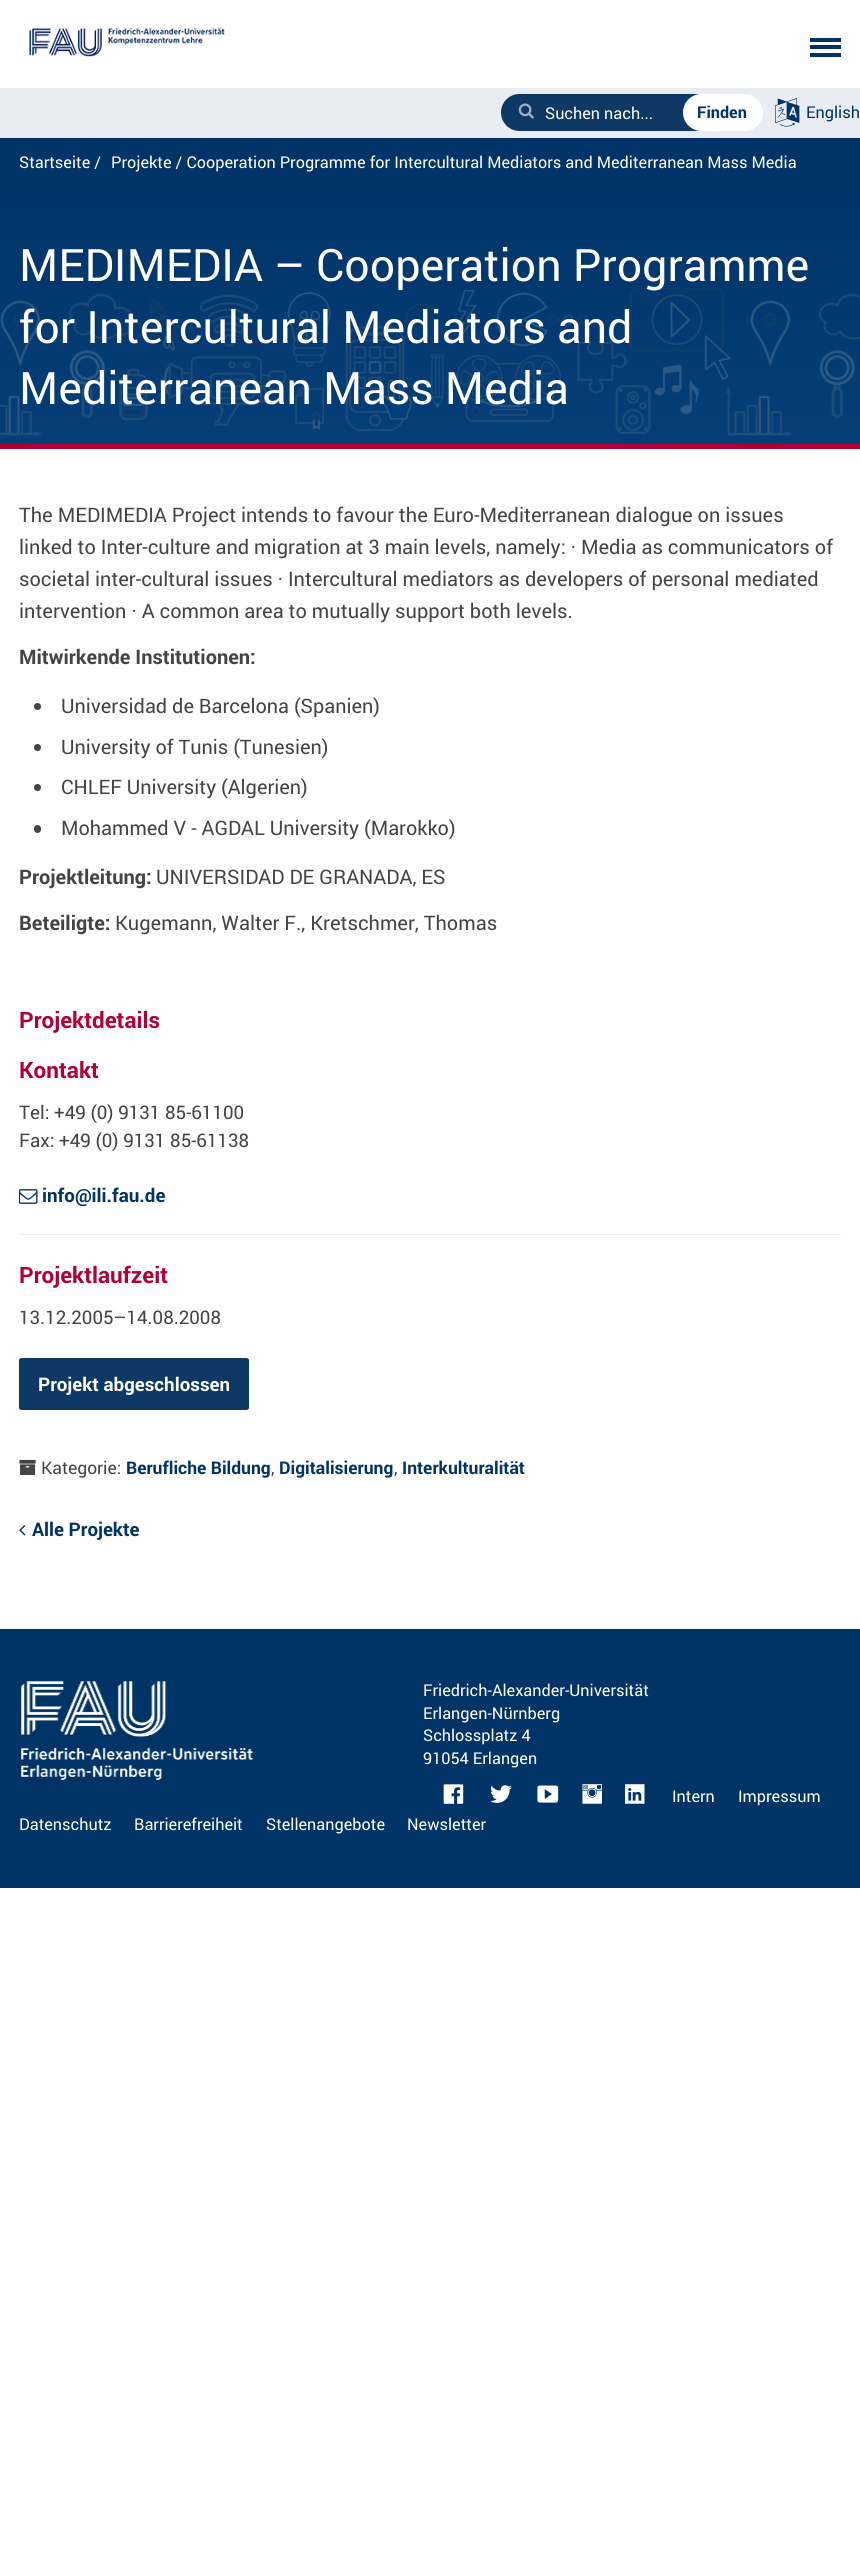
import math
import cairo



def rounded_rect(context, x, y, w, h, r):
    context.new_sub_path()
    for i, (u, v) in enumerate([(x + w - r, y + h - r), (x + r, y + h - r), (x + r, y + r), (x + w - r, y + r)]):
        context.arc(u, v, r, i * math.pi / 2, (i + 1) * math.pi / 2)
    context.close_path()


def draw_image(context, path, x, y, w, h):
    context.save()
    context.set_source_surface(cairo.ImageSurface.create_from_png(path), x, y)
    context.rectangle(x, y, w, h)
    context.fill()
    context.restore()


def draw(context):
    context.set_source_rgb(1, 1, 1)
    context.paint()
    draw_image(context, "images/1.png", 29, 27, 196, 30)
    context.set_source_rgb(0, 51 / 255, 102 / 255)
    context.rectangle(810, 38, 31, 4)
    context.fill()
    context.rectangle(810, 45, 31, 4)
    context.fill()
    context.rectangle(810, 53, 31, 4)
    context.fill()
    context.set_source_rgb(233 / 255, 237 / 255, 242 / 255)
    context.rectangle(0, 88, 860, 50)
    context.fill()
    context.set_source_rgb(13 / 255, 57 / 255, 100 / 255)
    rounded_rect(context, 501, 94, 213, 37, 18.5)
    context.fill()
    context.set_source_rgba(0, 0, 0, 0.07)
    context.new_path()
    context.move_to(520, 95)
    context.line_to(695, 95)
    context.curve_to(705, 95, 714, 103, 714, 113)
    context.line_to(714, 112)
    context.curve_to(714, 102, 706, 94, 696, 94)
    context.line_to(520, 94)
    context.curve_to(509, 94, 501, 102, 501, 112)
    context.line_to(501, 113)
    context.curve_to(501, 103, 510, 95, 520, 95)
    context.close_path()
    context.fill()
    draw_image(context, "images/2.png", 518, 103, 16, 16)
    context.set_source_rgb(1, 1, 1)
    rounded_rect(context, 683, 94, 80, 37, 18.5)
    context.fill()
    draw_image(context, "images/3.png", 775, 98, 25, 29)
    gradient = cairo.LinearGradient(430, 137, 430, 444)
    gradient.add_color_stop_rgba(0, 0, 51 / 255, 102 / 255, 1)
    gradient.add_color_stop_rgba(1, 5 / 255, 62 / 255, 119 / 255, 1)
    context.set_source(gradient)
    context.rectangle(0, 138, 860, 306)
    context.fill()
    context.set_source_rgb(178 / 255, 0, 54 / 255)
    context.rectangle(0, 444, 860, 5)
    context.fill()
    draw_image(context, "images/4.png", 0, 288, 860, 148)
    context.set_source_rgb(68 / 255, 68 / 255, 68 / 255)
    context.arc(37.5, 706.5, 3.5, 0, 2 * math.pi)
    context.fill()
    context.arc(37.5, 747.5, 3.5, 0, 2 * math.pi)
    context.fill()
    context.arc(37.5, 787.5, 3.5, 0, 2 * math.pi)
    context.fill()
    rounded_rect(context, 34, 825, 7, 8, 3.5)
    context.fill()
    draw_image(context, "images/5.png", 19, 1189, 19, 15)
    context.set_source_rgb(238 / 255, 238 / 255, 238 / 255)
    context.rectangle(19, 1234, 822, 1)
    context.fill()
    context.set_source_rgb(13 / 255, 57 / 255, 100 / 255)
    rounded_rect(context, 19, 1358, 230, 52, 2.5)
    context.fill()
    draw_image(context, "images/6.png", 19, 1459, 17, 16)
    draw_image(context, "images/7.png", 19, 1525, 7, 11)
    context.set_source_rgb(0, 51 / 255, 102 / 255)
    context.rectangle(0, 1629, 860, 259)
    context.fill()
    draw_image(context, "images/8.png", 21, 1681, 233, 99)
    draw_image(context, "images/9.png", 443, 1784, 21, 20)
    draw_image(context, "images/10.png", 490, 1785, 22, 18)
    draw_image(context, "images/11.png", 537, 1785, 22, 18)
    draw_image(context, "images/12.png", 582, 1784, 20, 20)
    draw_image(context, "images/13.png", 625, 1784, 20, 20)
    context.select_font_face("roboto")
    context.set_font_size(16.25)
    context.set_source_rgb(1, 1, 1)
    context.move_to(545, 119)
    context.show_text("Suchen nach...")
    context.select_font_face("roboto", cairo.FontSlant.NORMAL, cairo.FontWeight.BOLD)
    context.set_source_rgb(0, 51 / 255, 102 / 255)
    context.move_to(697, 118)
    context.show_text("Finden")
    context.select_font_face("roboto")
    context.move_to(806, 118)
    context.show_text("English")
    context.set_source_rgb(1, 1, 1)
    context.move_to(19, 168)
    context.show_text("Startseite /")
    context.move_to(111, 168)
    context.show_text("Projekte / Cooperation Programme for Intercultural Mediators and Mediterranean Mass Media")
    context.set_font_size(44.7)
    context.move_to(19, 281)
    context.show_text("MEDIMEDIA – Cooperation Programme")
    context.move_to(19, 343)
    context.show_text("for Intercultural Mediators and")
    context.move_to(19, 404)
    context.show_text("Mediterranean Mass Media")
    context.set_font_size(20)
    context.set_source_rgb(68 / 255, 68 / 255, 68 / 255)
    context.move_to(19, 522)
    context.show_text("The MEDIMEDIA Project intends to favour the Euro-Mediterranean dialogue on issues")
    context.move_to(19, 554)
    context.show_text("linked to Inter-culture and migration at 3 main levels, namely: · Media as communicators of")
    context.move_to(19, 586)
    context.show_text("societal inter-cultural issues · Intercultural mediators as developers of personal mediated")
    context.move_to(19, 618)
    context.show_text("intervention · A common area to mutually support both levels.")
    context.select_font_face("roboto", cairo.FontSlant.NORMAL, cairo.FontWeight.BOLD)
    context.move_to(19, 664)
    context.show_text("Mitwirkende Institutionen:")
    context.select_font_face("roboto")
    context.set_font_size(19.9)
    context.move_to(61, 713)
    context.show_text("Universidad de Barcelona (Spanien)")
    context.move_to(61, 754)
    context.show_text("University of Tunis (Tunesien)")
    context.move_to(61, 794)
    context.show_text("CHLEF University (Algerien)")
    context.move_to(61, 835)
    context.show_text("Mohammed V - AGDAL University (Marokko)")
    context.select_font_face("roboto", cairo.FontSlant.NORMAL, cairo.FontWeight.BOLD)
    context.set_font_size(20)
    context.move_to(19, 884)
    context.show_text("Projektleitung:")
    context.select_font_face("roboto")
    context.move_to(156, 884)
    context.show_text("UNIVERSIDAD DE GRANADA, ES")
    context.select_font_face("roboto", cairo.FontSlant.NORMAL, cairo.FontWeight.BOLD)
    context.move_to(19, 930)
    context.show_text("Beteiligte:")
    context.select_font_face("roboto")
    context.move_to(115, 930)
    context.show_text("Kugemann, Walter F., Kretschmer, Thomas")
    context.select_font_face("roboto", cairo.FontSlant.NORMAL, cairo.FontWeight.BOLD)
    context.set_font_size(22.5)
    context.set_source_rgb(178 / 255, 0, 54 / 255)
    context.move_to(19, 1028)
    context.show_text("Projektdetails")
    context.move_to(19, 1078)
    context.show_text("Kontakt")
    context.select_font_face("roboto")
    context.set_font_size(18.75)
    context.set_source_rgb(68 / 255, 68 / 255, 68 / 255)
    context.move_to(19, 1119)
    context.show_text("Tel: +49 (0) 9131 85-61100")
    context.move_to(19, 1147)
    context.show_text("Fax: +49 (0) 9131 85-61138")
    context.select_font_face("roboto", cairo.FontSlant.NORMAL, cairo.FontWeight.BOLD)
    context.set_source_rgb(0, 51 / 255, 102 / 255)
    context.move_to(42, 1202)
    context.show_text("info@ili.fau.de")
    context.set_font_size(22.5)
    context.set_source_rgb(178 / 255, 0, 54 / 255)
    context.move_to(19, 1283)
    context.show_text("Projektlaufzeit")
    context.select_font_face("roboto")
    context.set_font_size(18.75)
    context.set_source_rgb(68 / 255, 68 / 255, 68 / 255)
    context.move_to(19, 1324)
    context.show_text("13.12.2005–14.08.2008")
    context.select_font_face("roboto", cairo.FontSlant.NORMAL, cairo.FontWeight.BOLD)
    context.set_source_rgb(1, 1, 1)
    context.move_to(38, 1391)
    context.show_text("Projekt abgeschlossen")
    context.select_font_face("roboto")
    context.set_font_size(17.5)
    context.set_source_rgb(68 / 255, 68 / 255, 68 / 255)
    context.move_to(41, 1474)
    context.show_text("Kategorie:")
    context.select_font_face("roboto", cairo.FontSlant.NORMAL, cairo.FontWeight.BOLD)
    context.set_source_rgb(0, 51 / 255, 102 / 255)
    context.move_to(126, 1474)
    context.show_text("Berufliche Bildung")
    context.select_font_face("roboto")
    context.set_source_rgb(68 / 255, 68 / 255, 68 / 255)
    context.move_to(271, 1474)
    context.show_text(",")
    context.select_font_face("roboto", cairo.FontSlant.NORMAL, cairo.FontWeight.BOLD)
    context.set_source_rgb(0, 51 / 255, 102 / 255)
    context.move_to(279, 1474)
    context.show_text("Digitalisierung")
    context.select_font_face("roboto")
    context.set_source_rgb(68 / 255, 68 / 255, 68 / 255)
    context.move_to(394, 1474)
    context.show_text(",")
    context.select_font_face("roboto", cairo.FontSlant.NORMAL, cairo.FontWeight.BOLD)
    context.set_source_rgb(0, 51 / 255, 102 / 255)
    context.move_to(402, 1474)
    context.show_text("Interkulturalität")
    context.set_font_size(18.75)
    context.move_to(32, 1536)
    context.show_text("Alle Projekte")
    context.select_font_face("roboto")
    context.set_font_size(16.25)
    context.set_source_rgb(1, 1, 1)
    context.move_to(423, 1696)
    context.show_text("Friedrich-Alexander-Universität")
    context.move_to(423, 1719)
    context.show_text("Erlangen-Nürnberg")
    context.move_to(423, 1741)
    context.show_text("Schlossplatz 4")
    context.move_to(423, 1764)
    context.show_text("91054 Erlangen")
    context.move_to(672, 1802)
    context.show_text("Intern")
    context.move_to(738, 1802)
    context.show_text("Impressum")
    context.move_to(19, 1830)
    context.show_text("Datenschutz")
    context.move_to(134, 1830)
    context.show_text("Barrierefreiheit")
    context.move_to(266, 1830)
    context.show_text("Stellenangebote")
    context.move_to(407, 1830)
    context.show_text("Newsletter")


surface = cairo.ImageSurface(cairo.Format.RGB24, 860, 2552)
context = cairo.Context(surface)
options = cairo.FontOptions()
options.set_hint_metrics(cairo.HintMetrics.OFF)
options.set_hint_style(cairo.HintStyle.NONE)
context.set_font_options(options)
context.set_miter_limit(4)
draw(context)
surface.write_to_png("out.png")
